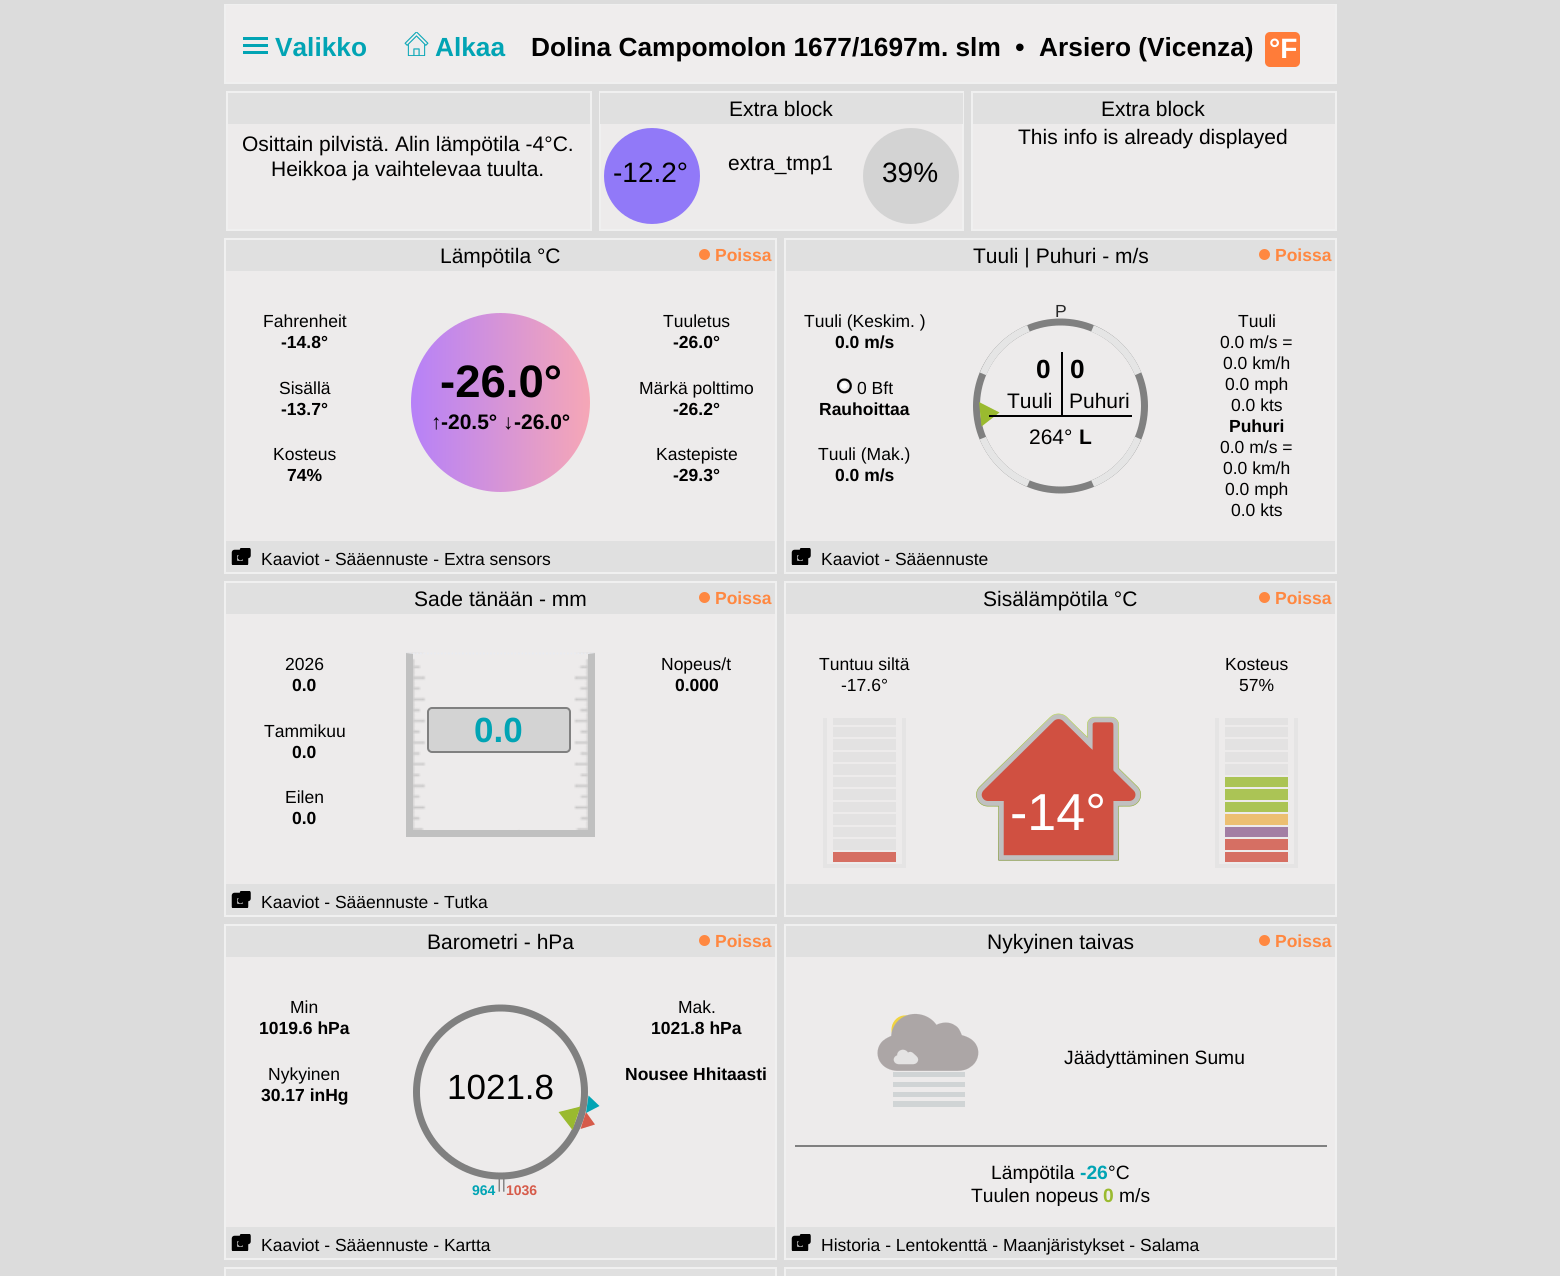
import math
import cairo



def rounded_rect(context, x, y, w, h, r):
    context.new_sub_path()
    for i, (u, v) in enumerate([(x + w - r, y + h - r), (x + r, y + h - r), (x + r, y + r), (x + w - r, y + r)]):
        context.arc(u, v, r, i * math.pi / 2, (i + 1) * math.pi / 2)
    context.close_path()


def draw_image(context, path, x, y, w, h):
    context.save()
    context.set_source_surface(cairo.ImageSurface.create_from_png(path), x, y)
    context.rectangle(x, y, w, h)
    context.fill()
    context.restore()


def draw(context):
    context.set_source_rgb(220 / 255, 220 / 255, 220 / 255)
    context.paint()
    context.rectangle(225, 5, 1111, 78)
    context.set_source_rgb(240 / 255, 240 / 255, 240 / 255)
    context.stroke()
    context.set_source_rgb(239 / 255, 237 / 255, 237 / 255)
    context.rectangle(226, 5, 1109, 77)
    context.fill()
    context.set_source_rgb(1 / 255, 164 / 255, 180 / 255)
    context.rectangle(243, 37, 25, 3)
    context.fill()
    context.rectangle(243, 44, 25, 3)
    context.fill()
    context.rectangle(243, 51, 25, 3)
    context.fill()
    draw_image(context, "images/1.png", 404, 32, 25, 24)
    context.set_source_rgb(1, 124 / 255, 57 / 255)
    rounded_rect(context, 1265, 32, 35, 35, 5)
    context.fill()
    context.set_source_rgb(237 / 255, 235 / 255, 235 / 255)
    context.rectangle(601, 124, 361, 105)
    context.fill()
    context.rectangle(600, 92, 363, 138)
    context.set_source_rgb(240 / 255, 240 / 255, 240 / 255)
    context.stroke()
    context.set_source_rgb(224 / 255, 224 / 255, 224 / 255)
    context.rectangle(600, 93, 363, 31)
    context.fill()
    context.set_source_rgb(145 / 255, 121 / 255, 248 / 255)
    context.arc(652, 176, 48, 0, 2 * math.pi)
    context.fill()
    context.set_source_rgb(211 / 255, 211 / 255, 211 / 255)
    context.arc(911, 176, 48, 0, 2 * math.pi)
    context.fill()
    context.set_source_rgb(237 / 255, 235 / 255, 235 / 255)
    context.rectangle(973, 124, 362, 105)
    context.fill()
    context.rectangle(972, 92, 364, 138)
    context.set_source_rgb(240 / 255, 240 / 255, 240 / 255)
    context.stroke()
    context.set_source_rgb(224 / 255, 224 / 255, 224 / 255)
    context.rectangle(973, 93, 362, 31)
    context.fill()
    context.set_source_rgb(237 / 255, 235 / 255, 235 / 255)
    context.rectangle(228, 124, 362, 105)
    context.fill()
    context.rectangle(227, 92, 364, 138)
    context.set_source_rgb(240 / 255, 240 / 255, 240 / 255)
    context.stroke()
    context.set_source_rgb(224 / 255, 224 / 255, 224 / 255)
    context.rectangle(228, 93, 362, 31)
    context.fill()
    context.set_source_rgb(237 / 255, 235 / 255, 235 / 255)
    context.rectangle(226, 271, 549, 270)
    context.fill()
    context.rectangle(225, 239, 551, 334)
    context.set_source_rgb(240 / 255, 240 / 255, 240 / 255)
    context.stroke()
    context.set_source_rgb(224 / 255, 224 / 255, 224 / 255)
    context.rectangle(226, 240, 549, 31)
    context.fill()
    context.set_source_rgb(1, 136 / 255, 65 / 255)
    context.arc(704.5, 254.5, 5.5, 0, 2 * math.pi)
    context.fill()
    gradient = cairo.LinearGradient(411, 403, 590, 403)
    gradient.add_color_stop_rgba(0, 182 / 255, 129 / 255, 248 / 255, 1)
    gradient.add_color_stop_rgba(1, 246 / 255, 167 / 255, 182 / 255, 1)
    context.set_source(gradient)
    context.arc(500.5, 402.5, 89.5, 0, 2 * math.pi)
    context.fill()
    context.set_source_rgb(224 / 255, 224 / 255, 224 / 255)
    context.rectangle(226, 541, 549, 31)
    context.fill()
    context.save()
    context.rectangle(231, 548, 21, 17)
    context.clip()
    context.new_path()
    context.move_to(240.5, 552.5)
    context.line_to(234.5, 552.5)
    context.line_to(234.5, 563.5)
    context.line_to(245.5, 563.5)
    context.line_to(245.5, 557.5)
    context.move_to(242.5, 550)
    context.line_to(248, 550)
    context.line_to(248, 555.5)
    context.move_to(248, 550)
    context.line_to(240.5, 557.5)
    context.set_source_rgb(0, 0, 0)
    context.set_line_width(5.5)
    context.set_line_cap(cairo.LineCap.ROUND)
    context.set_line_join(cairo.LineJoin.ROUND)
    context.stroke()
    context.restore()
    context.set_source_rgb(237 / 255, 235 / 255, 235 / 255)
    context.rectangle(786, 271, 549, 270)
    context.fill()
    context.rectangle(785, 239, 551, 334)
    context.set_source_rgb(240 / 255, 240 / 255, 240 / 255)
    context.stroke()
    context.set_source_rgb(224 / 255, 224 / 255, 224 / 255)
    context.rectangle(786, 240, 549, 31)
    context.fill()
    context.set_source_rgb(1, 136 / 255, 65 / 255)
    context.arc(1264.5, 254.5, 5.5, 0, 2 * math.pi)
    context.fill()
    draw_image(context, "images/2.png", 837, 378, 15, 16)
    context.arc(1060.5, 406, 84, 0, 2 * math.pi)
    context.set_source_rgb(128 / 255, 128 / 255, 128 / 255)
    context.set_line_width(7)
    context.stroke()
    context.new_path()
    context.move_to(1092.5, 328.5)
    context.curve_to(1135.5, 346, 1156, 395.5, 1138, 438)
    context.curve_to(1120.5, 481, 1071, 501.5, 1028.5, 483.5)
    context.curve_to(985.5, 466, 965, 416.5, 983, 374)
    context.curve_to(1000.5, 331, 1050, 310.5, 1092.5, 328.5)
    context.close_path()
    context.set_source_rgb(229 / 255, 229 / 255, 229 / 255)
    context.set_dash([65.97, 65.97])
    context.stroke()
    context.set_source_rgb(154 / 255, 186 / 255, 47 / 255)
    context.new_path()
    context.move_to(979, 402)
    context.line_to(999.5, 412.5)
    context.line_to(981.5, 426.5)
    context.close_path()
    context.fill()
    context.set_source_rgb(0, 0, 0)
    context.rectangle(989, 415, 143, 2)
    context.fill()
    context.rectangle(1061, 352, 2, 65)
    context.fill()
    context.set_source_rgb(224 / 255, 224 / 255, 224 / 255)
    context.rectangle(786, 541, 549, 31)
    context.fill()
    context.save()
    context.rectangle(791, 548, 21, 17)
    context.clip()
    context.new_path()
    context.move_to(800.5, 552.5)
    context.line_to(794.5, 552.5)
    context.line_to(794.5, 563.5)
    context.line_to(805.5, 563.5)
    context.line_to(805.5, 557.5)
    context.move_to(802.5, 550)
    context.line_to(808, 550)
    context.line_to(808, 555.5)
    context.move_to(808, 550)
    context.line_to(800.5, 557.5)
    context.set_source_rgb(0, 0, 0)
    context.set_line_width(5.5)
    context.set_line_cap(cairo.LineCap.ROUND)
    context.set_line_join(cairo.LineJoin.ROUND)
    context.set_dash([])
    context.stroke()
    context.restore()
    context.set_source_rgb(237 / 255, 235 / 255, 235 / 255)
    context.rectangle(226, 614, 549, 270)
    context.fill()
    context.rectangle(225, 582, 551, 334)
    context.set_source_rgb(240 / 255, 240 / 255, 240 / 255)
    context.set_line_width(2)
    context.set_dash([])
    context.stroke()
    context.set_source_rgb(224 / 255, 224 / 255, 224 / 255)
    context.rectangle(226, 583, 549, 31)
    context.fill()
    context.set_source_rgb(1, 136 / 255, 65 / 255)
    context.arc(704.5, 597.5, 5.5, 0, 2 * math.pi)
    context.fill()
    draw_image(context, "images/3.png", 406, 652, 189, 178)
    context.new_path()
    context.move_to(406, 653.5)
    context.line_to(595, 653.5)
    context.set_source_rgb(233 / 255, 235 / 255, 241 / 255)
    context.set_line_width(1.8)
    context.set_dash([1.75, 1.75])
    context.stroke()
    context.set_source_rgb(192 / 255, 192 / 255, 192 / 255)
    context.new_path()
    context.move_to(595, 653)
    context.line_to(595, 836)
    context.line_to(588, 830)
    context.line_to(588, 654)
    context.close_path()
    context.fill()
    context.rectangle(406, 830, 189, 7)
    context.fill()
    context.new_path()
    context.move_to(406, 836)
    context.line_to(406, 653)
    context.line_to(413, 654)
    context.line_to(413, 830)
    context.close_path()
    context.fill()
    context.set_source_rgb(211 / 255, 211 / 255, 211 / 255)
    rounded_rect(context, 428, 708, 142, 44, 4)
    context.fill_preserve()
    context.set_source_rgb(128 / 255, 128 / 255, 128 / 255)
    context.set_line_width(2)
    context.set_dash([])
    context.stroke()
    context.set_source_rgb(224 / 255, 224 / 255, 224 / 255)
    context.rectangle(226, 884, 549, 31)
    context.fill()
    context.save()
    context.rectangle(231, 891, 21, 17)
    context.clip()
    context.new_path()
    context.move_to(240.5, 895.5)
    context.line_to(234.5, 895.5)
    context.line_to(234.5, 906.5)
    context.line_to(245.5, 906.5)
    context.line_to(245.5, 900.5)
    context.move_to(242.5, 893)
    context.line_to(248, 893)
    context.line_to(248, 898.5)
    context.move_to(248, 893)
    context.line_to(240.5, 900.5)
    context.set_source_rgb(0, 0, 0)
    context.set_line_width(5.5)
    context.set_line_cap(cairo.LineCap.ROUND)
    context.set_line_join(cairo.LineJoin.ROUND)
    context.stroke()
    context.restore()
    context.set_source_rgb(237 / 255, 235 / 255, 235 / 255)
    context.rectangle(786, 614, 549, 270)
    context.fill()
    context.rectangle(785, 582, 551, 334)
    context.set_source_rgb(240 / 255, 240 / 255, 240 / 255)
    context.stroke()
    context.set_source_rgb(224 / 255, 224 / 255, 224 / 255)
    context.rectangle(786, 583, 549, 31)
    context.fill()
    context.set_source_rgb(1, 136 / 255, 65 / 255)
    context.arc(1264.5, 597.5, 5.5, 0, 2 * math.pi)
    context.fill()
    context.set_source_rgb(229 / 255, 228 / 255, 228 / 255)
    context.new_path()
    context.move_to(823, 718)
    context.line_to(827, 718)
    context.line_to(827, 864)
    context.line_to(902, 864)
    context.line_to(902, 718)
    context.line_to(906, 718)
    context.line_to(906, 868)
    context.line_to(823, 868)
    context.close_path()
    context.fill()
    context.set_source_rgb(227 / 255, 226 / 255, 226 / 255)
    context.rectangle(833, 718, 63, 7)
    context.fill()
    context.rectangle(833, 727, 63, 10)
    context.fill()
    context.rectangle(833, 739, 63, 11)
    context.fill()
    context.rectangle(833, 752, 63, 10)
    context.fill()
    context.rectangle(833, 764, 63, 11)
    context.fill()
    context.rectangle(833, 777, 63, 10)
    context.fill()
    context.rectangle(833, 789, 63, 11)
    context.fill()
    context.rectangle(833, 802, 63, 10)
    context.fill()
    context.rectangle(833, 814, 63, 11)
    context.fill()
    context.rectangle(833, 827, 63, 10)
    context.fill()
    context.rectangle(833, 839, 63, 11)
    context.fill()
    context.set_source_rgb(214 / 255, 111 / 255, 99 / 255)
    context.rectangle(833, 852, 63, 10)
    context.fill()
    context.set_source_rgb(229 / 255, 228 / 255, 228 / 255)
    context.new_path()
    context.move_to(1215, 718)
    context.line_to(1219, 718)
    context.line_to(1219, 864)
    context.line_to(1294, 864)
    context.line_to(1294, 718)
    context.line_to(1298, 718)
    context.line_to(1298, 868)
    context.line_to(1215, 868)
    context.close_path()
    context.fill()
    context.set_source_rgb(227 / 255, 226 / 255, 226 / 255)
    context.rectangle(1225, 718, 63, 7)
    context.fill()
    context.rectangle(1225, 727, 63, 10)
    context.fill()
    context.rectangle(1225, 739, 63, 11)
    context.fill()
    context.rectangle(1225, 752, 63, 10)
    context.fill()
    context.rectangle(1225, 764, 63, 11)
    context.fill()
    context.set_source_rgb(171 / 255, 196 / 255, 85 / 255)
    context.rectangle(1225, 777, 63, 10)
    context.fill()
    context.rectangle(1225, 789, 63, 11)
    context.fill()
    context.rectangle(1225, 802, 63, 10)
    context.fill()
    context.set_source_rgb(236 / 255, 191 / 255, 114 / 255)
    context.rectangle(1225, 814, 63, 11)
    context.fill()
    context.set_source_rgb(163 / 255, 126 / 255, 164 / 255)
    context.rectangle(1225, 827, 63, 10)
    context.fill()
    context.set_source_rgb(214 / 255, 111 / 255, 99 / 255)
    context.rectangle(1225, 839, 63, 11)
    context.fill()
    context.rectangle(1225, 852, 63, 10)
    context.fill()
    draw_image(context, "images/4.png", 976, 713, 166, 148)
    context.set_source_rgb(224 / 255, 224 / 255, 224 / 255)
    context.rectangle(786, 884, 549, 31)
    context.fill()
    context.set_source_rgb(237 / 255, 235 / 255, 235 / 255)
    context.rectangle(226, 957, 549, 270)
    context.fill()
    context.rectangle(225, 925, 551, 334)
    context.set_source_rgb(240 / 255, 240 / 255, 240 / 255)
    context.stroke()
    context.set_source_rgb(224 / 255, 224 / 255, 224 / 255)
    context.rectangle(226, 926, 549, 31)
    context.fill()
    context.set_source_rgb(1, 136 / 255, 65 / 255)
    context.arc(704.5, 940.5, 5.5, 0, 2 * math.pi)
    context.fill()
    context.arc(500.5, 1092, 84, 0, 2 * math.pi)
    context.set_source_rgb(128 / 255, 128 / 255, 128 / 255)
    context.set_line_width(7)
    context.stroke()
    context.set_source_rgb(154 / 255, 186 / 255, 47 / 255)
    context.new_path()
    context.move_to(572.5, 1130)
    context.line_to(558.5, 1112)
    context.line_to(580.5, 1106.5)
    context.close_path()
    context.fill()
    context.set_source_rgb(214 / 255, 91 / 255, 74 / 255)
    context.new_path()
    context.move_to(580.5, 1129)
    context.line_to(595, 1124.5)
    context.line_to(586, 1112)
    context.close_path()
    context.fill()
    context.set_source_rgb(1 / 255, 164 / 255, 180 / 255)
    context.new_path()
    context.move_to(586, 1113)
    context.line_to(599.5, 1106)
    context.line_to(588.5, 1095.5)
    context.close_path()
    context.fill()
    context.set_source_rgb(224 / 255, 224 / 255, 224 / 255)
    context.rectangle(226, 1227, 549, 31)
    context.fill()
    context.save()
    context.rectangle(231, 1234, 21, 17)
    context.clip()
    context.new_path()
    context.move_to(240.5, 1238.5)
    context.line_to(234.5, 1238.5)
    context.line_to(234.5, 1249.5)
    context.line_to(245.5, 1249.5)
    context.line_to(245.5, 1243.5)
    context.move_to(242.5, 1236)
    context.line_to(248, 1236)
    context.line_to(248, 1241.5)
    context.move_to(248, 1236)
    context.line_to(240.5, 1243.5)
    context.set_source_rgb(0, 0, 0)
    context.set_line_width(5.5)
    context.set_line_cap(cairo.LineCap.ROUND)
    context.set_line_join(cairo.LineJoin.ROUND)
    context.stroke()
    context.restore()
    context.set_source_rgb(237 / 255, 235 / 255, 235 / 255)
    context.rectangle(786, 957, 549, 270)
    context.fill()
    context.rectangle(785, 925, 551, 334)
    context.set_source_rgb(240 / 255, 240 / 255, 240 / 255)
    context.set_line_width(2)
    context.stroke()
    context.set_source_rgb(224 / 255, 224 / 255, 224 / 255)
    context.rectangle(786, 926, 549, 31)
    context.fill()
    context.set_source_rgb(1, 136 / 255, 65 / 255)
    context.arc(1264.5, 940.5, 5.5, 0, 2 * math.pi)
    context.fill()
    draw_image(context, "images/5.png", 877, 1013, 102, 94)
    context.set_source_rgb(128 / 255, 128 / 255, 128 / 255)
    context.rectangle(795, 1145, 532, 2)
    context.fill()
    context.set_source_rgb(224 / 255, 224 / 255, 224 / 255)
    context.rectangle(786, 1227, 549, 31)
    context.fill()
    context.save()
    context.rectangle(791, 1234, 21, 17)
    context.clip()
    context.new_path()
    context.move_to(800.5, 1238.5)
    context.line_to(794.5, 1238.5)
    context.line_to(794.5, 1249.5)
    context.line_to(805.5, 1249.5)
    context.line_to(805.5, 1243.5)
    context.move_to(802.5, 1236)
    context.line_to(808, 1236)
    context.line_to(808, 1241.5)
    context.move_to(808, 1236)
    context.line_to(800.5, 1243.5)
    context.set_source_rgb(0, 0, 0)
    context.set_line_width(5.5)
    context.set_line_cap(cairo.LineCap.ROUND)
    context.set_line_join(cairo.LineJoin.ROUND)
    context.stroke()
    context.restore()
    context.rectangle(225, 1268, 551, 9)
    context.set_source_rgb(240 / 255, 240 / 255, 240 / 255)
    context.stroke()
    context.set_source_rgb(224 / 255, 224 / 255, 224 / 255)
    context.rectangle(226, 1269, 549, 7)
    context.fill()
    context.rectangle(785, 1268, 551, 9)
    context.set_source_rgb(240 / 255, 240 / 255, 240 / 255)
    context.stroke()
    context.set_source_rgb(224 / 255, 224 / 255, 224 / 255)
    context.rectangle(786, 1269, 549, 7)
    context.fill()
    context.select_font_face("Liberation Sans", cairo.FontSlant.NORMAL, cairo.FontWeight.BOLD)
    context.set_font_size(26.25)
    context.set_source_rgb(1 / 255, 164 / 255, 180 / 255)
    context.move_to(275, 56)
    context.show_text("Valikko")
    context.move_to(435, 56)
    context.show_text("Alkaa")
    context.set_source_rgb(0, 0, 0)
    context.move_to(531, 56)
    context.show_text("Dolina Campomolon 1677/1697m. slm  •  Arsiero (Vicenza)")
    context.set_font_size(28)
    context.set_source_rgb(1, 1, 1)
    context.move_to(1269, 58)
    context.show_text("°F")
    context.select_font_face("Liberation Sans")
    context.set_font_size(21)
    context.set_source_rgb(0, 0, 0)
    context.move_to(729, 116)
    context.show_text("Extra block")
    context.set_font_size(28)
    context.move_to(613, 182)
    context.show_text("-12.2°")
    context.set_font_size(21)
    context.move_to(728, 170)
    context.show_text("extra_tmp1")
    context.set_font_size(28)
    context.move_to(882, 182)
    context.show_text("39%")
    context.set_font_size(21)
    context.move_to(1101, 116)
    context.show_text("Extra block")
    context.move_to(1018, 144)
    context.show_text("This info is already displayed")
    context.move_to(242, 151)
    context.show_text("Osittain pilvistä. Alin lämpötila -4°C.")
    context.move_to(271, 176)
    context.show_text("Heikkoa ja vaihtelevaa tuulta.")
    context.move_to(440, 263)
    context.show_text("Lämpötila °C")
    context.select_font_face("Liberation Sans", cairo.FontSlant.NORMAL, cairo.FontWeight.BOLD)
    context.set_font_size(17.5)
    context.set_source_rgb(1, 136 / 255, 65 / 255)
    context.move_to(715, 261)
    context.show_text("Poissa")
    context.select_font_face("Liberation Sans")
    context.set_source_rgb(0, 0, 0)
    context.move_to(263, 327)
    context.show_text("Fahrenheit")
    context.select_font_face("Liberation Sans", cairo.FontSlant.NORMAL, cairo.FontWeight.BOLD)
    context.move_to(281, 348)
    context.show_text("-14.8°")
    context.select_font_face("Liberation Sans")
    context.move_to(279, 394)
    context.show_text("Sisällä")
    context.select_font_face("Liberation Sans", cairo.FontSlant.NORMAL, cairo.FontWeight.BOLD)
    context.move_to(281, 415)
    context.show_text("-13.7°")
    context.select_font_face("Liberation Sans")
    context.move_to(273, 460)
    context.show_text("Kosteus")
    context.select_font_face("Liberation Sans", cairo.FontSlant.NORMAL, cairo.FontWeight.BOLD)
    context.move_to(287, 481)
    context.show_text("74%")
    context.set_font_size(45.5)
    context.move_to(440, 397)
    context.show_text("-26.0°")
    context.select_font_face("Liberation Sans")
    context.set_font_size(21)
    context.move_to(431, 429)
    context.show_text("↑")
    context.select_font_face("Liberation Sans", cairo.FontSlant.NORMAL, cairo.FontWeight.BOLD)
    context.move_to(441, 429)
    context.show_text("-20.5°")
    context.select_font_face("Liberation Sans")
    context.move_to(503, 429)
    context.show_text("↓")
    context.select_font_face("Liberation Sans", cairo.FontSlant.NORMAL, cairo.FontWeight.BOLD)
    context.move_to(514, 429)
    context.show_text("-26.0°")
    context.select_font_face("Liberation Sans")
    context.set_font_size(17.5)
    context.move_to(663, 327)
    context.show_text("Tuuletus")
    context.select_font_face("Liberation Sans", cairo.FontSlant.NORMAL, cairo.FontWeight.BOLD)
    context.move_to(673, 348)
    context.show_text("-26.0°")
    context.select_font_face("Liberation Sans")
    context.move_to(639, 394)
    context.show_text("Märkä polttimo")
    context.select_font_face("Liberation Sans", cairo.FontSlant.NORMAL, cairo.FontWeight.BOLD)
    context.move_to(673, 415)
    context.show_text("-26.2°")
    context.select_font_face("Liberation Sans")
    context.move_to(656, 460)
    context.show_text("Kastepiste")
    context.select_font_face("Liberation Sans", cairo.FontSlant.NORMAL, cairo.FontWeight.BOLD)
    context.move_to(673, 481)
    context.show_text("-29.3°")
    context.select_font_face("Liberation Sans")
    context.move_to(261, 565)
    context.show_text("Kaaviot - Sääennuste - Extra sensors")
    context.set_font_size(21)
    context.move_to(973, 263)
    context.show_text("Tuuli | Puhuri - m/s")
    context.select_font_face("Liberation Sans", cairo.FontSlant.NORMAL, cairo.FontWeight.BOLD)
    context.set_font_size(17.5)
    context.set_source_rgb(1, 136 / 255, 65 / 255)
    context.move_to(1275, 261)
    context.show_text("Poissa")
    context.select_font_face("Liberation Sans")
    context.set_source_rgb(0, 0, 0)
    context.move_to(804, 327)
    context.show_text("Tuuli (Keskim. )")
    context.select_font_face("Liberation Sans", cairo.FontSlant.NORMAL, cairo.FontWeight.BOLD)
    context.move_to(835, 348)
    context.show_text("0.0 m/s")
    context.select_font_face("Liberation Sans")
    context.move_to(857, 394)
    context.show_text("0 Bft")
    context.select_font_face("Liberation Sans", cairo.FontSlant.NORMAL, cairo.FontWeight.BOLD)
    context.move_to(819, 415)
    context.show_text("Rauhoittaa")
    context.select_font_face("Liberation Sans")
    context.move_to(818, 460)
    context.show_text("Tuuli (Mak.)")
    context.select_font_face("Liberation Sans", cairo.FontSlant.NORMAL, cairo.FontWeight.BOLD)
    context.move_to(835, 481)
    context.show_text("0.0 m/s")
    context.select_font_face("Liberation Sans")
    context.set_source_rgb(40 / 255, 40 / 255, 40 / 255)
    context.move_to(1055, 317)
    context.show_text("P")
    context.select_font_face("Liberation Sans", cairo.FontSlant.NORMAL, cairo.FontWeight.BOLD)
    context.set_font_size(26.25)
    context.set_source_rgb(0, 0, 0)
    context.move_to(1036, 378)
    context.show_text("0")
    context.move_to(1070, 378)
    context.show_text("0")
    context.select_font_face("Liberation Sans")
    context.set_font_size(21)
    context.move_to(1007, 408)
    context.show_text("Tuuli")
    context.move_to(1069, 408)
    context.show_text("Puhuri")
    context.move_to(1029, 444)
    context.show_text("264°")
    context.select_font_face("Liberation Sans", cairo.FontSlant.NORMAL, cairo.FontWeight.BOLD)
    context.move_to(1079, 444)
    context.show_text("L")
    context.select_font_face("Liberation Sans")
    context.set_font_size(17.5)
    context.move_to(1238, 327)
    context.show_text("Tuuli")
    context.move_to(1220, 348)
    context.show_text("0.0 m/s =")
    context.move_to(1223, 369)
    context.show_text("0.0 km/h")
    context.move_to(1225, 390)
    context.show_text("0.0 mph")
    context.move_to(1231, 411)
    context.show_text("0.0 kts")
    context.select_font_face("Liberation Sans", cairo.FontSlant.NORMAL, cairo.FontWeight.BOLD)
    context.move_to(1229, 432)
    context.show_text("Puhuri")
    context.select_font_face("Liberation Sans")
    context.move_to(1220, 453)
    context.show_text("0.0 m/s =")
    context.move_to(1223, 474)
    context.show_text("0.0 km/h")
    context.move_to(1225, 495)
    context.show_text("0.0 mph")
    context.move_to(1231, 516)
    context.show_text("0.0 kts")
    context.move_to(821, 565)
    context.show_text("Kaaviot - Sääennuste")
    context.set_font_size(21)
    context.move_to(414, 606)
    context.show_text("Sade tänään - mm")
    context.select_font_face("Liberation Sans", cairo.FontSlant.NORMAL, cairo.FontWeight.BOLD)
    context.set_font_size(17.5)
    context.set_source_rgb(1, 136 / 255, 65 / 255)
    context.move_to(715, 604)
    context.show_text("Poissa")
    context.select_font_face("Liberation Sans")
    context.set_source_rgb(0, 0, 0)
    context.move_to(285, 670)
    context.show_text("2026")
    context.select_font_face("Liberation Sans", cairo.FontSlant.NORMAL, cairo.FontWeight.BOLD)
    context.move_to(292, 691)
    context.show_text("0.0")
    context.select_font_face("Liberation Sans")
    context.move_to(264, 737)
    context.show_text("Tammikuu")
    context.select_font_face("Liberation Sans", cairo.FontSlant.NORMAL, cairo.FontWeight.BOLD)
    context.move_to(292, 758)
    context.show_text("0.0")
    context.select_font_face("Liberation Sans")
    context.move_to(285, 803)
    context.show_text("Eilen")
    context.select_font_face("Liberation Sans", cairo.FontSlant.NORMAL, cairo.FontWeight.BOLD)
    context.move_to(292, 824)
    context.show_text("0.0")
    context.select_font_face("Liberation Sans")
    context.move_to(661, 670)
    context.show_text("Nopeus/t")
    context.select_font_face("Liberation Sans", cairo.FontSlant.NORMAL, cairo.FontWeight.BOLD)
    context.move_to(675, 691)
    context.show_text("0.000")
    context.set_font_size(35)
    context.set_source_rgb(1 / 255, 164 / 255, 180 / 255)
    context.move_to(474, 742)
    context.show_text("0.0")
    context.select_font_face("Liberation Sans")
    context.set_font_size(17.5)
    context.set_source_rgb(0, 0, 0)
    context.move_to(261, 908)
    context.show_text("Kaaviot - Sääennuste - Tutka")
    context.set_font_size(21)
    context.move_to(983, 606)
    context.show_text("Sisälämpötila °C")
    context.select_font_face("Liberation Sans", cairo.FontSlant.NORMAL, cairo.FontWeight.BOLD)
    context.set_font_size(17.5)
    context.set_source_rgb(1, 136 / 255, 65 / 255)
    context.move_to(1275, 604)
    context.show_text("Poissa")
    context.select_font_face("Liberation Sans")
    context.set_source_rgb(0, 0, 0)
    context.move_to(819, 670)
    context.show_text("Tuntuu siltä")
    context.move_to(841, 691)
    context.show_text("-17.6°")
    context.move_to(1225, 670)
    context.show_text("Kosteus")
    context.move_to(1239, 691)
    context.show_text("57%")
    context.set_font_size(52)
    context.set_source_rgb(1, 1, 1)
    context.move_to(1010, 830)
    context.show_text("-14°")
    context.set_font_size(21)
    context.set_source_rgb(0, 0, 0)
    context.move_to(427, 949)
    context.show_text("Barometri - hPa")
    context.select_font_face("Liberation Sans", cairo.FontSlant.NORMAL, cairo.FontWeight.BOLD)
    context.set_font_size(17.5)
    context.set_source_rgb(1, 136 / 255, 65 / 255)
    context.move_to(715, 947)
    context.show_text("Poissa")
    context.select_font_face("Liberation Sans")
    context.set_source_rgb(0, 0, 0)
    context.move_to(290, 1013)
    context.show_text("Min")
    context.select_font_face("Liberation Sans", cairo.FontSlant.NORMAL, cairo.FontWeight.BOLD)
    context.move_to(259, 1034)
    context.show_text("1019.6 hPa")
    context.select_font_face("Liberation Sans")
    context.move_to(268, 1080)
    context.show_text("Nykyinen")
    context.select_font_face("Liberation Sans", cairo.FontSlant.NORMAL, cairo.FontWeight.BOLD)
    context.move_to(261, 1101)
    context.show_text("30.17 inHg")
    context.select_font_face("Liberation Sans")
    context.move_to(678, 1013)
    context.show_text("Mak.")
    context.select_font_face("Liberation Sans", cairo.FontSlant.NORMAL, cairo.FontWeight.BOLD)
    context.move_to(651, 1034)
    context.show_text("1021.8 hPa")
    context.move_to(625, 1080)
    context.show_text("Nousee Hhitaasti")
    context.select_font_face("Liberation Sans")
    context.set_font_size(35)
    context.move_to(447, 1099)
    context.show_text("1021.8")
    context.select_font_face("Liberation Sans", cairo.FontSlant.NORMAL, cairo.FontWeight.BOLD)
    context.set_font_size(14)
    context.set_source_rgb(1 / 255, 164 / 255, 180 / 255)
    context.move_to(472, 1195)
    context.show_text("964")
    context.select_font_face("Liberation Sans")
    context.set_font_size(17.5)
    context.set_source_rgb(128 / 255, 128 / 255, 128 / 255)
    context.move_to(497, 1188)
    context.show_text("||")
    context.select_font_face("Liberation Sans", cairo.FontSlant.NORMAL, cairo.FontWeight.BOLD)
    context.set_font_size(14)
    context.set_source_rgb(214 / 255, 91 / 255, 74 / 255)
    context.move_to(506, 1195)
    context.show_text("1036")
    context.select_font_face("Liberation Sans")
    context.set_font_size(17.5)
    context.set_source_rgb(0, 0, 0)
    context.move_to(261, 1251)
    context.show_text("Kaaviot - Sääennuste - Kartta")
    context.set_font_size(21)
    context.move_to(987, 949)
    context.show_text("Nykyinen taivas")
    context.select_font_face("Liberation Sans", cairo.FontSlant.NORMAL, cairo.FontWeight.BOLD)
    context.set_font_size(17.5)
    context.set_source_rgb(1, 136 / 255, 65 / 255)
    context.move_to(1275, 947)
    context.show_text("Poissa")
    context.select_font_face("Liberation Sans")
    context.set_font_size(19.25)
    context.set_source_rgb(0, 0, 0)
    context.move_to(1064, 1064)
    context.show_text("Jäädyttäminen Sumu")
    context.move_to(991, 1179)
    context.show_text("Lämpötila")
    context.select_font_face("Liberation Sans", cairo.FontSlant.NORMAL, cairo.FontWeight.BOLD)
    context.set_source_rgb(1 / 255, 164 / 255, 180 / 255)
    context.move_to(1080, 1179)
    context.show_text("-26")
    context.select_font_face("Liberation Sans")
    context.set_source_rgb(0, 0, 0)
    context.move_to(1108, 1179)
    context.show_text("°C")
    context.move_to(971, 1202)
    context.show_text("Tuulen nopeus")
    context.select_font_face("Liberation Sans", cairo.FontSlant.NORMAL, cairo.FontWeight.BOLD)
    context.set_source_rgb(154 / 255, 186 / 255, 47 / 255)
    context.move_to(1103, 1202)
    context.show_text("0")
    context.select_font_face("Liberation Sans")
    context.set_source_rgb(0, 0, 0)
    context.move_to(1119, 1202)
    context.show_text("m/s")
    context.set_font_size(17.5)
    context.move_to(821, 1251)
    context.show_text("Historia - Lentokenttä - Maanjäristykset - Salama")


surface = cairo.ImageSurface(cairo.Format.RGB24, 1560, 1276)
context = cairo.Context(surface)
options = cairo.FontOptions()
options.set_hint_metrics(cairo.HintMetrics.OFF)
options.set_hint_style(cairo.HintStyle.NONE)
context.set_font_options(options)
context.set_miter_limit(4)
draw(context)
surface.write_to_png("out.png")
